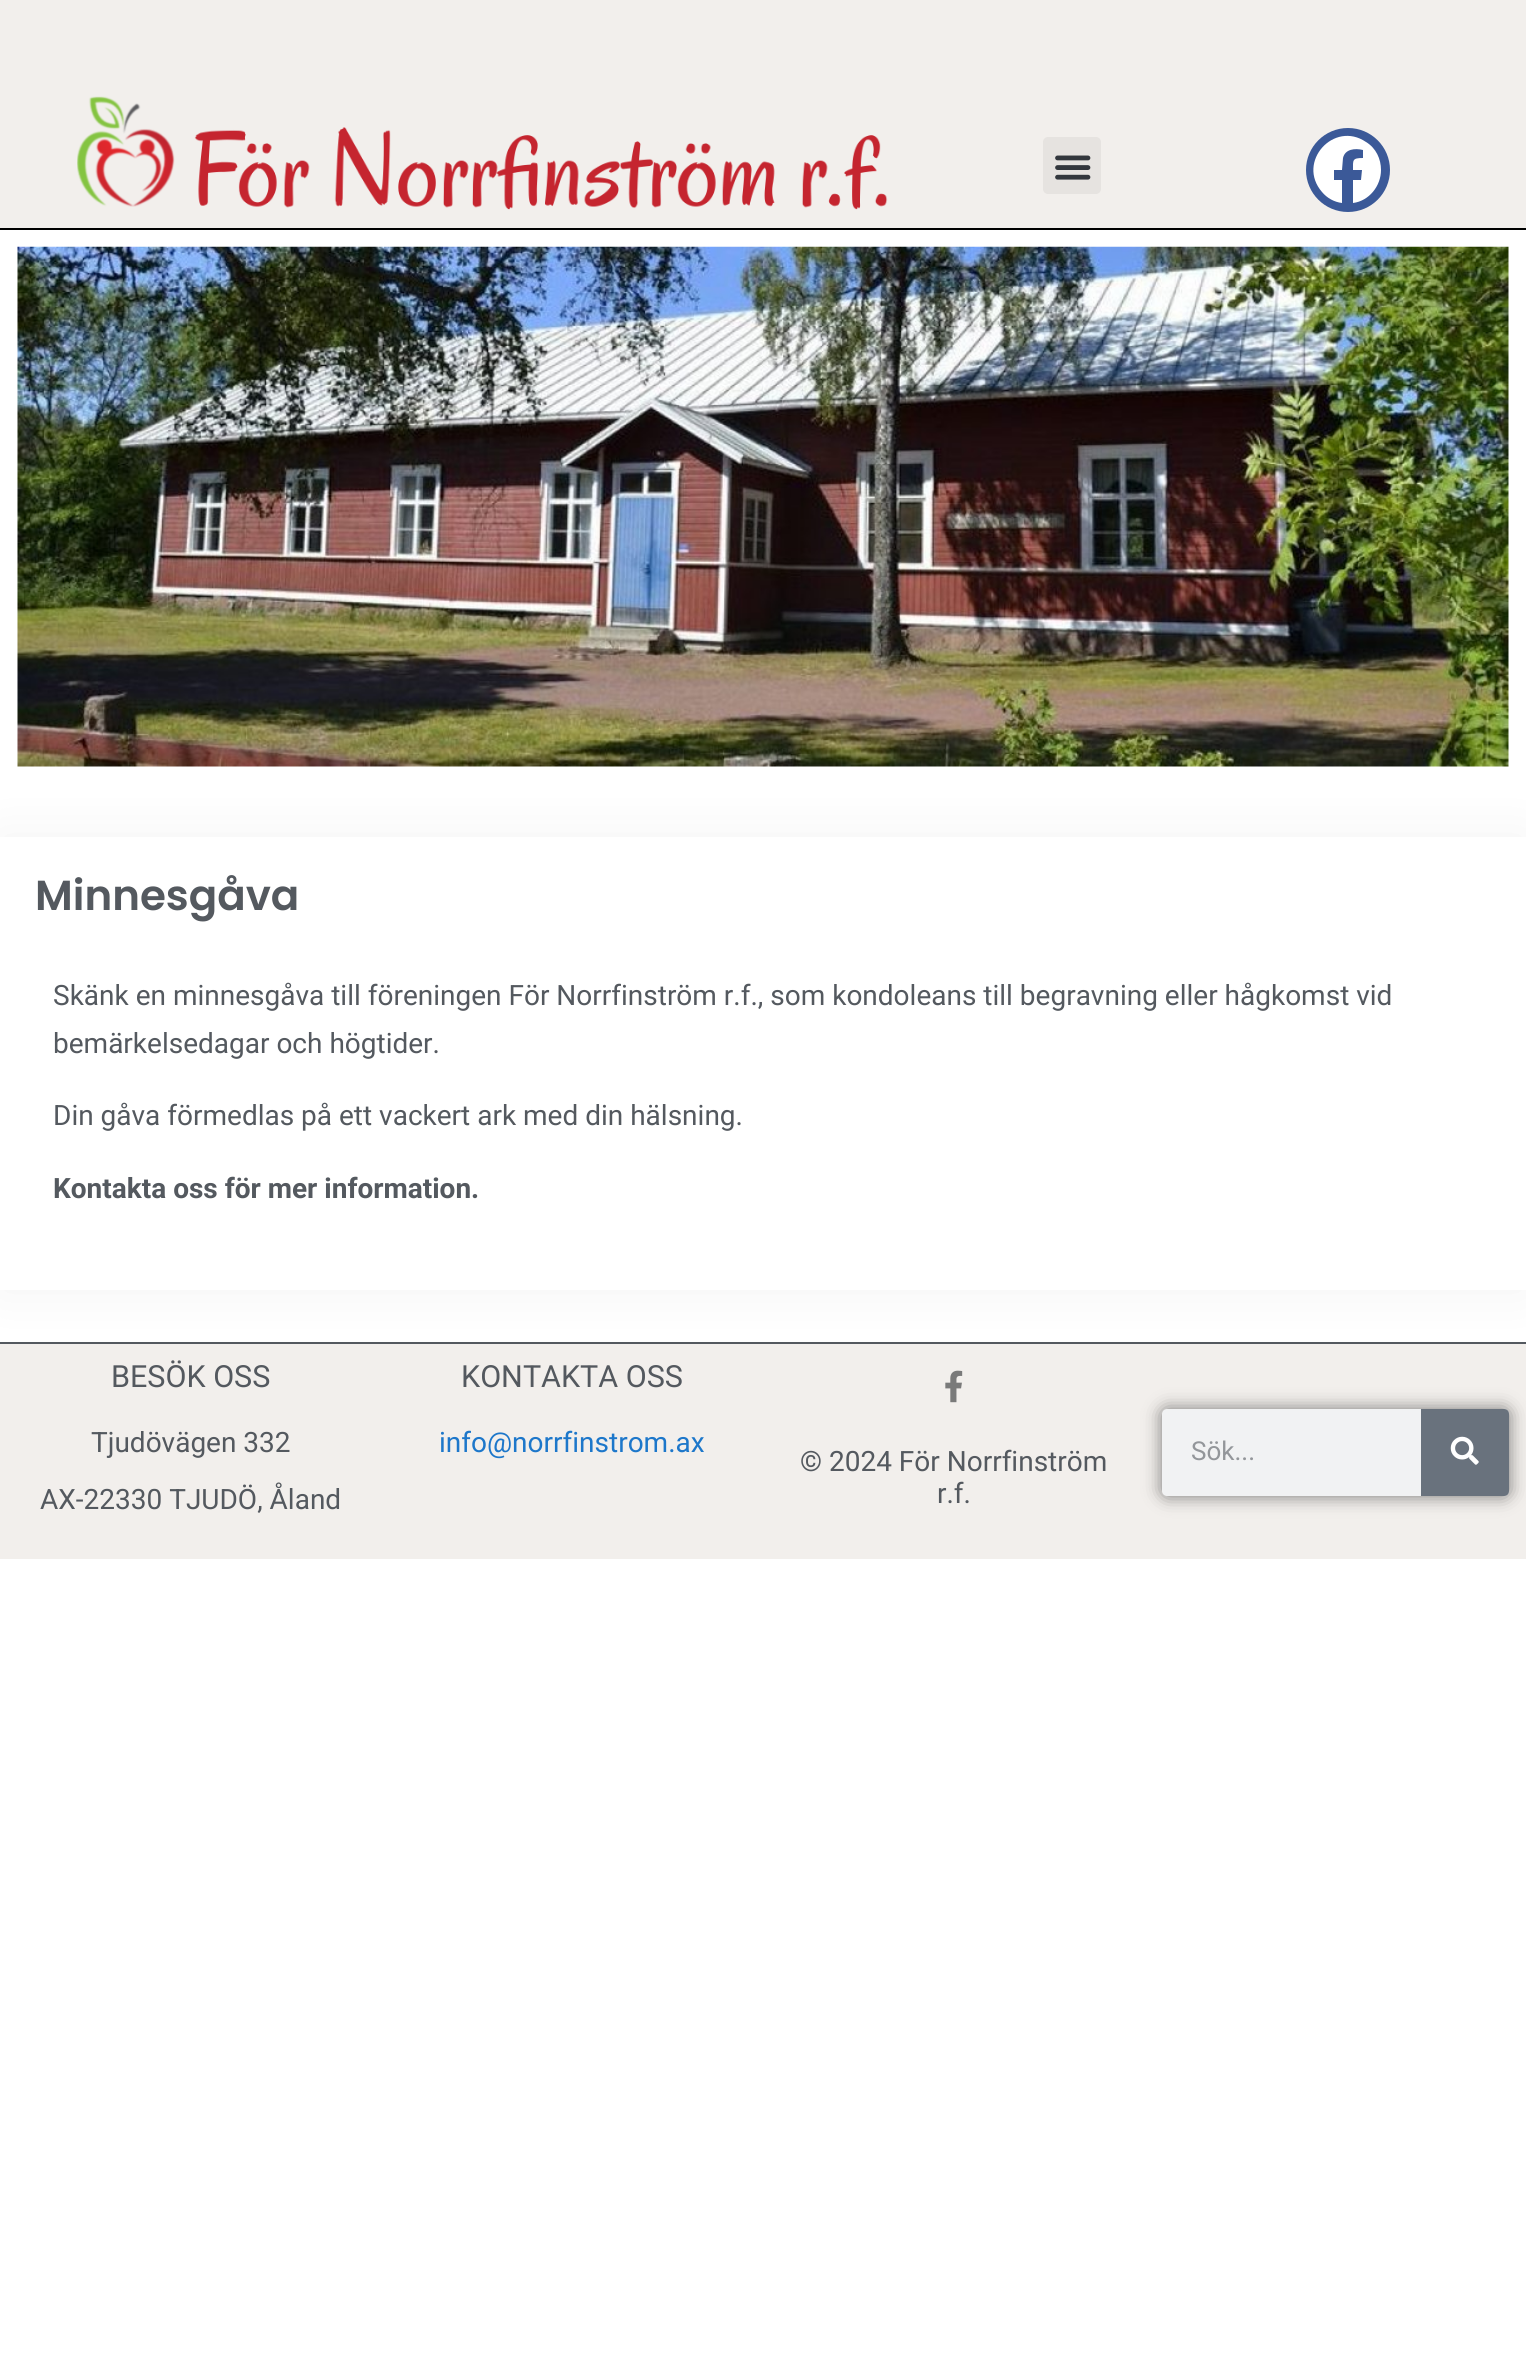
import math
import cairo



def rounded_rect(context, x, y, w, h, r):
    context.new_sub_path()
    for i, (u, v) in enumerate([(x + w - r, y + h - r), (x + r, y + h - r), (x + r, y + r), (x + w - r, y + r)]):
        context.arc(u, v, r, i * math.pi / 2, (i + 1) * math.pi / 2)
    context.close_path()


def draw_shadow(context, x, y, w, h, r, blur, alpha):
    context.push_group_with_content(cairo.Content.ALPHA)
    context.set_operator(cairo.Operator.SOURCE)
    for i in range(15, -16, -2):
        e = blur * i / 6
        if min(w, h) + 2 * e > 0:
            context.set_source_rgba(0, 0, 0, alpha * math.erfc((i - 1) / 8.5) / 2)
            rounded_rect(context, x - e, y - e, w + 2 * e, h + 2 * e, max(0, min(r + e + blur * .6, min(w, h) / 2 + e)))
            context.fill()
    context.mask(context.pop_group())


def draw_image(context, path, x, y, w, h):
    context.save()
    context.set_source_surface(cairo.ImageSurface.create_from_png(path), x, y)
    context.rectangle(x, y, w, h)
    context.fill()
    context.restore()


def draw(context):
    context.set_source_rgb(1, 1, 1)
    context.paint()
    context.set_source_rgb(242 / 255, 239 / 255, 236 / 255)
    context.rectangle(0, 0, 1526, 228)
    context.fill()
    context.set_source_rgb(0, 0, 0)
    context.rectangle(0, 228, 1526, 2)
    context.fill()
    draw_image(context, "images/1.png", 77, 96, 811, 114)
    context.set_source_rgb(230 / 255, 227 / 255, 224 / 255)
    rounded_rect(context, 1043, 137, 58, 57, 5)
    context.fill()
    draw_image(context, "images/2.png", 1055, 155, 36, 25)
    context.set_source_rgb(59 / 255, 89 / 255, 152 / 255)
    context.arc(1348, 170, 42, 0, 2 * math.pi)
    context.fill()
    context.set_source_rgb(1, 1, 1)
    context.new_path()
    context.move_to(1381, 170)
    context.curve_to(1381, 186, 1369, 201, 1353, 203)
    context.line_to(1353, 180)
    context.line_to(1361, 180)
    context.line_to(1362, 170)
    context.line_to(1353, 170)
    context.curve_to(1353, 160, 1352, 158, 1363, 158)
    context.line_to(1363, 150)
    context.curve_to(1355, 148, 1345, 149, 1343, 158)
    context.line_to(1342, 170)
    context.line_to(1334, 170)
    context.line_to(1334, 180)
    context.line_to(1342, 180)
    context.line_to(1342, 203)
    context.curve_to(1334, 202, 1327, 198, 1322, 192)
    context.curve_to(1296, 162, 1334, 120, 1366, 142)
    context.curve_to(1376, 148, 1381, 159, 1381, 170)
    context.close_path()
    context.fill()
    draw_image(context, "images/3.png", 17, 246, 1492, 521)
    context.set_source_rgb(0, 0, 0)
    draw_shadow(context, 0, 837, 1526, 453, 0, 26, 0.05)
    context.set_source_rgb(1, 1, 1)
    context.rectangle(0, 837, 1526, 453)
    context.fill()
    context.set_source_rgb(242 / 255, 239 / 255, 236 / 255)
    context.rectangle(0, 1344, 1526, 215)
    context.fill()
    context.set_source_rgb(84 / 255, 89 / 255, 95 / 255)
    context.rectangle(0, 1342, 1526, 2)
    context.fill()
    draw_image(context, "images/4.png", 945, 1370, 18, 33)
    context.set_source_rgb(0, 0, 0)
    draw_shadow(context, 1162, 1409, 347, 87, 5, 9, 0.5)
    context.set_source_rgb(241 / 255, 242 / 255, 243 / 255)
    rounded_rect(context, 1162, 1409, 347, 87, 5)
    context.fill()
    context.set_source_rgb(105 / 255, 114 / 255, 125 / 255)
    context.new_path()
    context.move_to(1421, 1409)
    context.line_to(1504, 1409)
    context.curve_to(1507, 1409, 1509, 1411, 1509, 1414)
    context.line_to(1509, 1491)
    context.curve_to(1509, 1494, 1507, 1496, 1504, 1496)
    context.line_to(1421, 1496)
    context.close_path()
    context.fill()
    draw_image(context, "images/5.png", 1450, 1436, 29, 29)
    context.select_font_face("Poppins SemiBold")
    context.set_font_size(42)
    context.set_source_rgb(84 / 255, 89 / 255, 95 / 255)
    context.move_to(35, 910)
    context.show_text("Minnesgåva")
    context.select_font_face("Roboto")
    context.set_font_size(28)
    context.move_to(53, 1005)
    context.show_text("Skänk en minnesgåva till föreningen För Norrfinström r.f., som kondoleans till begravning eller hågkomst vid")
    context.move_to(53, 1053)
    context.show_text("bemärkelsedagar och högtider.")
    context.move_to(53, 1125)
    context.show_text("Din gåva förmedlas på ett vackert ark med din hälsning.")
    context.select_font_face("Roboto", cairo.FontSlant.NORMAL, cairo.FontWeight.BOLD)
    context.move_to(53, 1198)
    context.show_text("Kontakta oss för mer information.")
    context.select_font_face("Roboto")
    context.set_font_size(30.5)
    context.move_to(111, 1387)
    context.show_text("BESÖK OSS")
    context.set_font_size(28)
    context.move_to(91, 1452)
    context.show_text("Tjudövägen 332")
    context.move_to(40, 1509)
    context.show_text("AX-22330 TJUDÖ, Åland")
    context.set_font_size(30.5)
    context.move_to(461, 1387)
    context.show_text("KONTAKTA OSS")
    context.set_font_size(28)
    context.set_source_rgb(29 / 255, 119 / 255, 202 / 255)
    context.move_to(439, 1452)
    context.show_text("info@norrfinstrom.ax")
    context.set_source_rgb(84 / 255, 89 / 255, 95 / 255)
    context.move_to(800, 1471)
    context.show_text("© 2024 För Norrfinström")
    context.move_to(937, 1503)
    context.show_text("r.f.")
    context.set_font_size(26)
    context.set_source_rgb(147 / 255, 150 / 255, 154 / 255)
    context.move_to(1191, 1460)
    context.show_text("Sök...")


surface = cairo.ImageSurface(cairo.Format.RGB24, 1526, 2355)
context = cairo.Context(surface)
options = cairo.FontOptions()
options.set_hint_metrics(cairo.HintMetrics.OFF)
options.set_hint_style(cairo.HintStyle.NONE)
context.set_font_options(options)
context.set_miter_limit(4)
draw(context)
surface.write_to_png("out.png")
